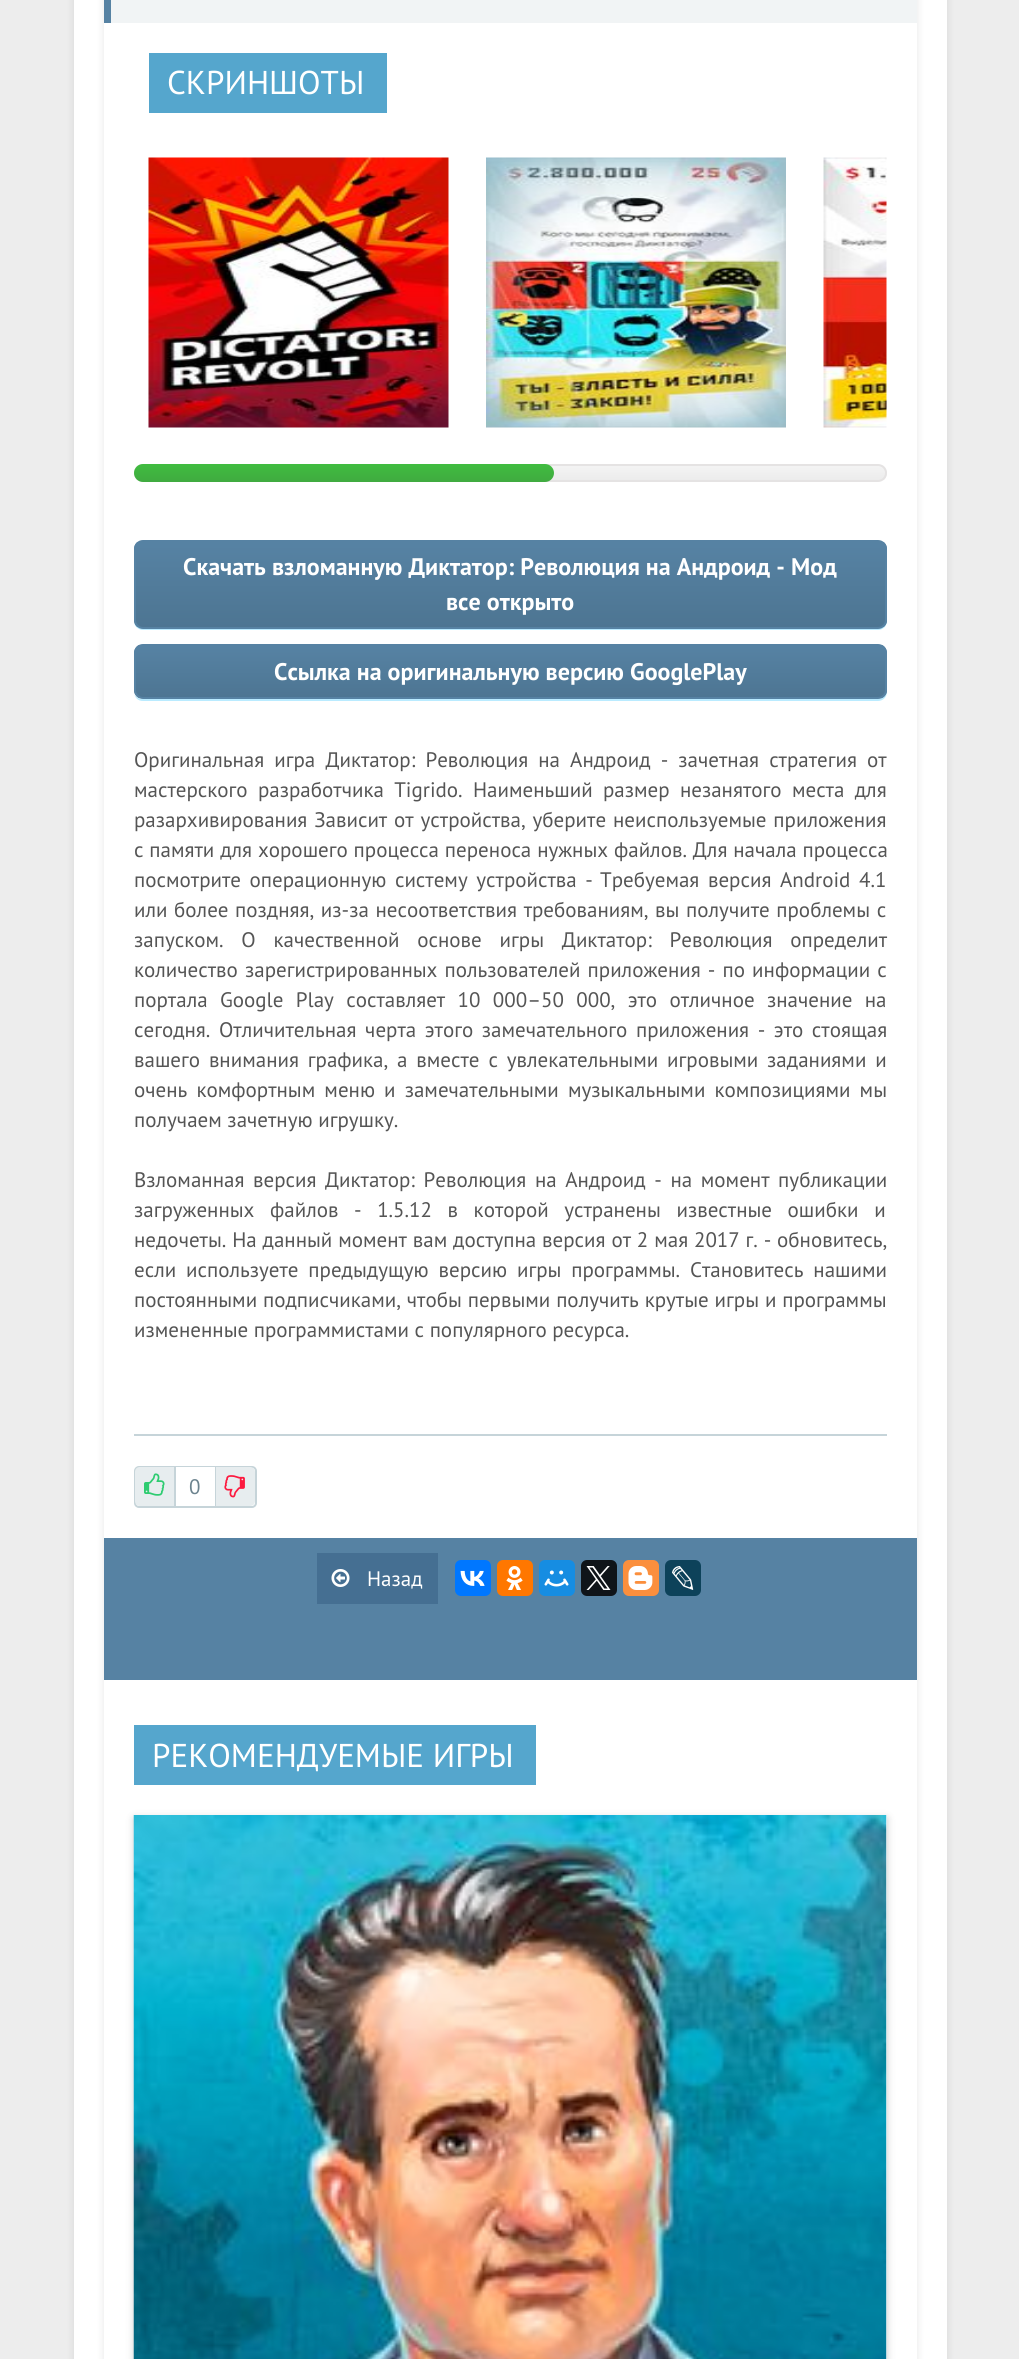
import math
import cairo



def draw_spaced(context, x, y, s, letter, word):
    context.move_to(x, y)
    for ch in s:
        context.show_text(ch)
        context.rel_move_to(letter + word * (ch == ' '), 0)


def rounded_rect(context, x, y, w, h, r):
    context.new_sub_path()
    for i, (u, v) in enumerate([(x + w - r, y + h - r), (x + r, y + h - r), (x + r, y + r), (x + w - r, y + r)]):
        context.arc(u, v, r, i * math.pi / 2, (i + 1) * math.pi / 2)
    context.close_path()


def draw_shadow(context, x, y, w, h, r, blur, alpha):
    context.push_group_with_content(cairo.Content.ALPHA)
    context.set_operator(cairo.Operator.SOURCE)
    for i in range(15, -16, -2):
        e = blur * i / 6
        if min(w, h) + 2 * e > 0:
            context.set_source_rgba(0, 0, 0, alpha * math.erfc((i - 1) / 8.5) / 2)
            rounded_rect(context, x - e, y - e, w + 2 * e, h + 2 * e, max(0, min(r + e + blur * .6, min(w, h) / 2 + e)))
            context.fill()
    context.mask(context.pop_group())


def draw_image(context, path, x, y, w, h):
    context.save()
    context.set_source_surface(cairo.ImageSurface.create_from_png(path), x, y)
    context.rectangle(x, y, w, h)
    context.fill()
    context.restore()


def draw(context):
    context.set_source_rgb(237 / 255, 237 / 255, 237 / 255)
    context.paint()
    context.set_source_rgb(0, 0, 0)
    draw_shadow(context, 74, -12, 873, 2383, 0, 4, 0.1)
    context.set_source_rgb(1, 1, 1)
    context.rectangle(74, 0, 873, 2359)
    context.fill()
    context.set_source_rgb(0, 0, 0)
    draw_shadow(context, 104, -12, 813, 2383, 0, 4, 0.1)
    context.set_source_rgb(1, 1, 1)
    context.rectangle(104, 23, 813, 2336)
    context.fill()
    context.set_source_rgb(241 / 255, 244 / 255, 245 / 255)
    context.rectangle(111, 0, 806, 23)
    context.fill()
    context.set_source_rgb(86 / 255, 130 / 255, 163 / 255)
    context.rectangle(104, 0, 7, 23)
    context.fill()
    context.set_source_rgb(85 / 255, 166 / 255, 205 / 255)
    context.rectangle(149, 53, 238, 60)
    context.fill()
    draw_image(context, "images/1.png", 148, 157, 301, 271)
    draw_image(context, "images/2.png", 486, 157, 300, 271)
    draw_image(context, "images/3.png", 823, 157, 64, 271)
    context.save()
    rounded_rect(context, 134, 464, 753, 18, 9)
    context.clip()
    gradient = cairo.LinearGradient(510, 465, 510, 480)
    gradient.add_color_stop_rgba(0, 244 / 255, 244 / 255, 244 / 255, 1)
    gradient.add_color_stop_rgba(1, 236 / 255, 236 / 255, 236 / 255, 1)
    context.set_source(gradient)
    context.rectangle(134, 465, 753, 15)
    context.fill()
    context.restore()
    rounded_rect(context, 135, 465, 751, 16, 8)
    context.set_source_rgb(229 / 255, 227 / 255, 227 / 255)
    context.stroke()
    gradient = cairo.LinearGradient(344, 464, 344, 482)
    gradient.add_color_stop_rgba(0, 64 / 255, 188 / 255, 64 / 255, 1)
    gradient.add_color_stop_rgba(1, 64 / 255, 170 / 255, 64 / 255, 1)
    context.set_source(gradient)
    rounded_rect(context, 134, 464, 420, 18, 9)
    context.fill()
    context.set_source_rgb(186 / 255, 235 / 255, 1)
    context.new_path()
    context.move_to(134, 623)
    context.curve_to(135, 627, 139, 630, 143, 630)
    context.line_to(878, 630)
    context.curve_to(883, 630, 887, 626, 887, 621)
    context.line_to(887, 551)
    context.line_to(886, 548)
    context.line_to(886, 620)
    context.curve_to(886, 624, 882, 628, 878, 628)
    context.line_to(142, 628)
    context.curve_to(139, 628, 136, 626, 134, 623)
    context.close_path()
    context.fill()
    context.save()
    rounded_rect(context, 134, 540, 753, 89, 9)
    context.clip()
    gradient = cairo.LinearGradient(510, 541, 510, 627)
    gradient.add_color_stop_rgba(0.05, 86 / 255, 130 / 255, 163 / 255, 1)
    gradient.add_color_stop_rgba(1, 77 / 255, 117 / 255, 146 / 255, 1)
    context.set_source(gradient)
    context.rectangle(134, 542, 753, 85)
    context.fill()
    context.restore()
    rounded_rect(context, 135, 541, 751, 87, 8)
    context.set_source_rgb(86 / 255, 130 / 255, 163 / 255)
    context.stroke()
    context.set_source_rgb(186 / 255, 235 / 255, 1)
    context.new_path()
    context.move_to(134, 693)
    context.curve_to(135, 698, 138, 701, 143, 701)
    context.line_to(878, 701)
    context.curve_to(883, 701, 887, 697, 887, 692)
    context.line_to(887, 654)
    context.line_to(886, 650)
    context.line_to(886, 690)
    context.curve_to(886, 695, 882, 699, 878, 699)
    context.line_to(142, 699)
    context.curve_to(139, 699, 135, 697, 134, 693)
    context.close_path()
    context.fill()
    context.save()
    rounded_rect(context, 134, 644, 753, 55, 9)
    context.clip()
    gradient = cairo.LinearGradient(510, 645, 510, 698)
    gradient.add_color_stop_rgba(0.05, 86 / 255, 130 / 255, 163 / 255, 1)
    gradient.add_color_stop_rgba(1, 77 / 255, 117 / 255, 146 / 255, 1)
    context.set_source(gradient)
    context.rectangle(134, 645, 753, 53)
    context.fill()
    context.restore()
    rounded_rect(context, 135, 645, 751, 53, 8)
    context.set_source_rgb(86 / 255, 130 / 255, 163 / 255)
    context.stroke()
    context.set_source_rgb(198 / 255, 212 / 255, 217 / 255)
    context.rectangle(134, 1434, 753, 2)
    context.fill()
    rounded_rect(context, 135, 1467, 121, 40, 4)
    context.stroke()
    context.rectangle(174, 1467, 2, 39)
    context.fill()
    context.set_source_rgb(231 / 255, 237 / 255, 239 / 255)
    context.new_path()
    context.move_to(140, 1467)
    context.line_to(174, 1467)
    context.line_to(174, 1506)
    context.line_to(140, 1506)
    context.curve_to(137, 1506, 135, 1504, 135, 1501)
    context.line_to(135, 1472)
    context.curve_to(135, 1469, 137, 1467, 140, 1467)
    context.close_path()
    context.fill()
    draw_image(context, "images/4.png", 144, 1473, 21, 23)
    context.set_source_rgb(1, 1, 1)
    context.rectangle(176, 1467, 39, 1)
    context.fill()
    context.set_source_rgb(198 / 255, 212 / 255, 217 / 255)
    context.rectangle(215, 1467, 1, 39)
    context.fill()
    context.set_source_rgb(231 / 255, 237 / 255, 239 / 255)
    context.new_path()
    context.move_to(216, 1467)
    context.line_to(250, 1467)
    context.curve_to(253, 1467, 255, 1469, 255, 1472)
    context.line_to(255, 1501)
    context.curve_to(255, 1504, 253, 1506, 250, 1506)
    context.line_to(216, 1506)
    context.close_path()
    context.fill()
    draw_image(context, "images/5.png", 224, 1475, 21, 23)
    context.set_source_rgb(86 / 255, 130 / 255, 163 / 255)
    context.rectangle(104, 1538, 813, 142)
    context.fill()
    context.set_source_rgb(69 / 255, 111 / 255, 146 / 255)
    context.rectangle(317, 1553, 121, 51)
    context.fill()
    draw_image(context, "images/6.png", 331, 1569, 19, 18)
    context.set_source_rgb(0, 119 / 255, 1)
    rounded_rect(context, 455, 1560, 36, 36, 6)
    context.fill()
    draw_image(context, "images/7.png", 460, 1570, 25, 16)
    context.set_source_rgb(1, 119 / 255, 0)
    rounded_rect(context, 497, 1560, 36, 36, 6)
    context.fill()
    draw_image(context, "images/8.png", 506, 1566, 17, 24)
    context.set_source_rgb(22 / 255, 141 / 255, 226 / 255)
    rounded_rect(context, 539, 1560, 36, 36, 6)
    context.fill()
    draw_image(context, "images/9.png", 544, 1570, 25, 17)
    context.set_source_rgb(15 / 255, 20 / 255, 25 / 255)
    rounded_rect(context, 581, 1560, 36, 36, 6)
    context.fill()
    draw_image(context, "images/10.png", 586, 1566, 25, 24)
    context.set_source_rgb(251 / 255, 143 / 255, 61 / 255)
    rounded_rect(context, 623, 1560, 36, 36, 6)
    context.fill()
    draw_image(context, "images/11.png", 628, 1566, 25, 24)
    context.set_source_rgb(13 / 255, 66 / 255, 90 / 255)
    rounded_rect(context, 665, 1560, 36, 36, 6)
    context.fill()
    draw_image(context, "images/12.png", 672, 1566, 22, 24)
    context.set_source_rgb(85 / 255, 166 / 255, 205 / 255)
    context.rectangle(134, 1725, 402, 60)
    context.fill()
    context.set_source_rgb(0, 0, 0)
    draw_shadow(context, 134, 1818, 753, 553, 0, 4, 0.2)
    context.set_source_rgb(251 / 255, 251 / 255, 251 / 255)
    context.rectangle(886, 1815, 1, 544)
    context.fill()
    draw_image(context, "images/13.png", 133, 1815, 754, 544)
    context.select_font_face("PT Sans")
    context.set_font_size(33)
    context.set_source_rgb(1, 1, 1)
    context.move_to(167, 94)
    context.show_text("СКРИНШОТЫ")
    context.select_font_face("PT Sans", cairo.FontSlant.NORMAL, cairo.FontWeight.BOLD)
    context.set_font_size(24)
    context.move_to(183, 575)
    context.show_text("Скачать взломанную Диктатор: Революция на Андроид - Мод")
    context.move_to(446, 610)
    context.show_text("все открыто")
    context.move_to(274, 680)
    context.show_text("Ссылка на оригинальную версию GooglePlay")
    context.select_font_face("PT Sans")
    context.set_font_size(21)
    context.set_source_rgb(85 / 255, 85 / 255, 85 / 255)
    draw_spaced(context, 134, 767, "Оригинальная игра Диктатор: Революция на Андроид - зачетная стратегия от", 0, 4.5)
    draw_spaced(context, 134, 797, "мастерского разработчика Tigrido. Наименьший размер незанятого места для", 0, 4.75)
    draw_spaced(context, 134, 827, "разархивирования Зависит от устройства, уберите неиспользуемые приложения", 0, 1.25)
    draw_spaced(context, 134, 857, "с памяти для хорошего процесса переноса нужных файлов. Для начала процесса", 0, 0.25)
    draw_spaced(context, 134, 887, "посмотрите операционную систему устройства -", 0, 3)
    draw_spaced(context, 600, 887, "Требуемая версия Android 4.1", 0, 3)
    draw_spaced(context, 134, 917, "или более поздняя, из-за несоответствия требованиям, вы получите проблемы с", 0, 1)
    draw_spaced(context, 134, 947, "запуском. О качественной основе игры Диктатор: Революция определит", 0, 12.25)
    draw_spaced(context, 134, 977, "количество зарегистрированных пользователей приложения - по информации с", 0, 1.5)
    draw_spaced(context, 134, 1007, "портала Google Play составляет 10 000–50 000, это отличное значение на", 0, 6.75)
    draw_spaced(context, 134, 1037, "сегодня. Отличительная черта этого замечательного приложения - это стоящая", 0, 3)
    draw_spaced(context, 134, 1067, "вашего внимания графика, а вместе с увлекательными игровыми заданиями и", 0, 3.25)
    draw_spaced(context, 134, 1097, "очень комфортным меню и замечательными музыкальными композициями мы", 0, 3.5)
    context.move_to(134, 1127)
    context.show_text("получаем зачетную игрушку.")
    draw_spaced(context, 134, 1187, "Взломанная версия Диктатор: Революция на Андроид - на момент публикации", 0, 3)
    draw_spaced(context, 134, 1217, "загруженных файлов", 0, 10)
    draw_spaced(context, 354, 1217, "- 1.5.12 в которой устранены известные ошибки и", 0, 10)
    draw_spaced(context, 134, 1247, "недочеты. На данный момент вам доступна версия от 2 мая 2017 г. - обновитесь,", 0, 0.25)
    draw_spaced(context, 134, 1277, "если используете предыдущую версию игры программы. Становитесь нашими", 0, 4.25)
    draw_spaced(context, 134, 1307, "постоянными подписчиками, чтобы первыми получить крутые игры и программы", 0, 0.25)
    context.move_to(134, 1337)
    context.show_text("измененные программистами с популярного ресурса.")
    context.set_source_rgb(108 / 255, 131 / 255, 142 / 255)
    context.move_to(189, 1494)
    context.show_text("0")
    context.set_source_rgb(1, 1, 1)
    context.move_to(367, 1586)
    context.show_text("Назад")
    context.set_font_size(33)
    context.move_to(152, 1767)
    context.show_text("РЕКОМЕНДУЕМЫЕ ИГРЫ")


surface = cairo.ImageSurface(cairo.Format.RGB24, 1019, 2359)
context = cairo.Context(surface)
options = cairo.FontOptions()
options.set_hint_metrics(cairo.HintMetrics.OFF)
options.set_hint_style(cairo.HintStyle.NONE)
context.set_font_options(options)
context.set_miter_limit(4)
draw(context)
surface.write_to_png("out.png")
